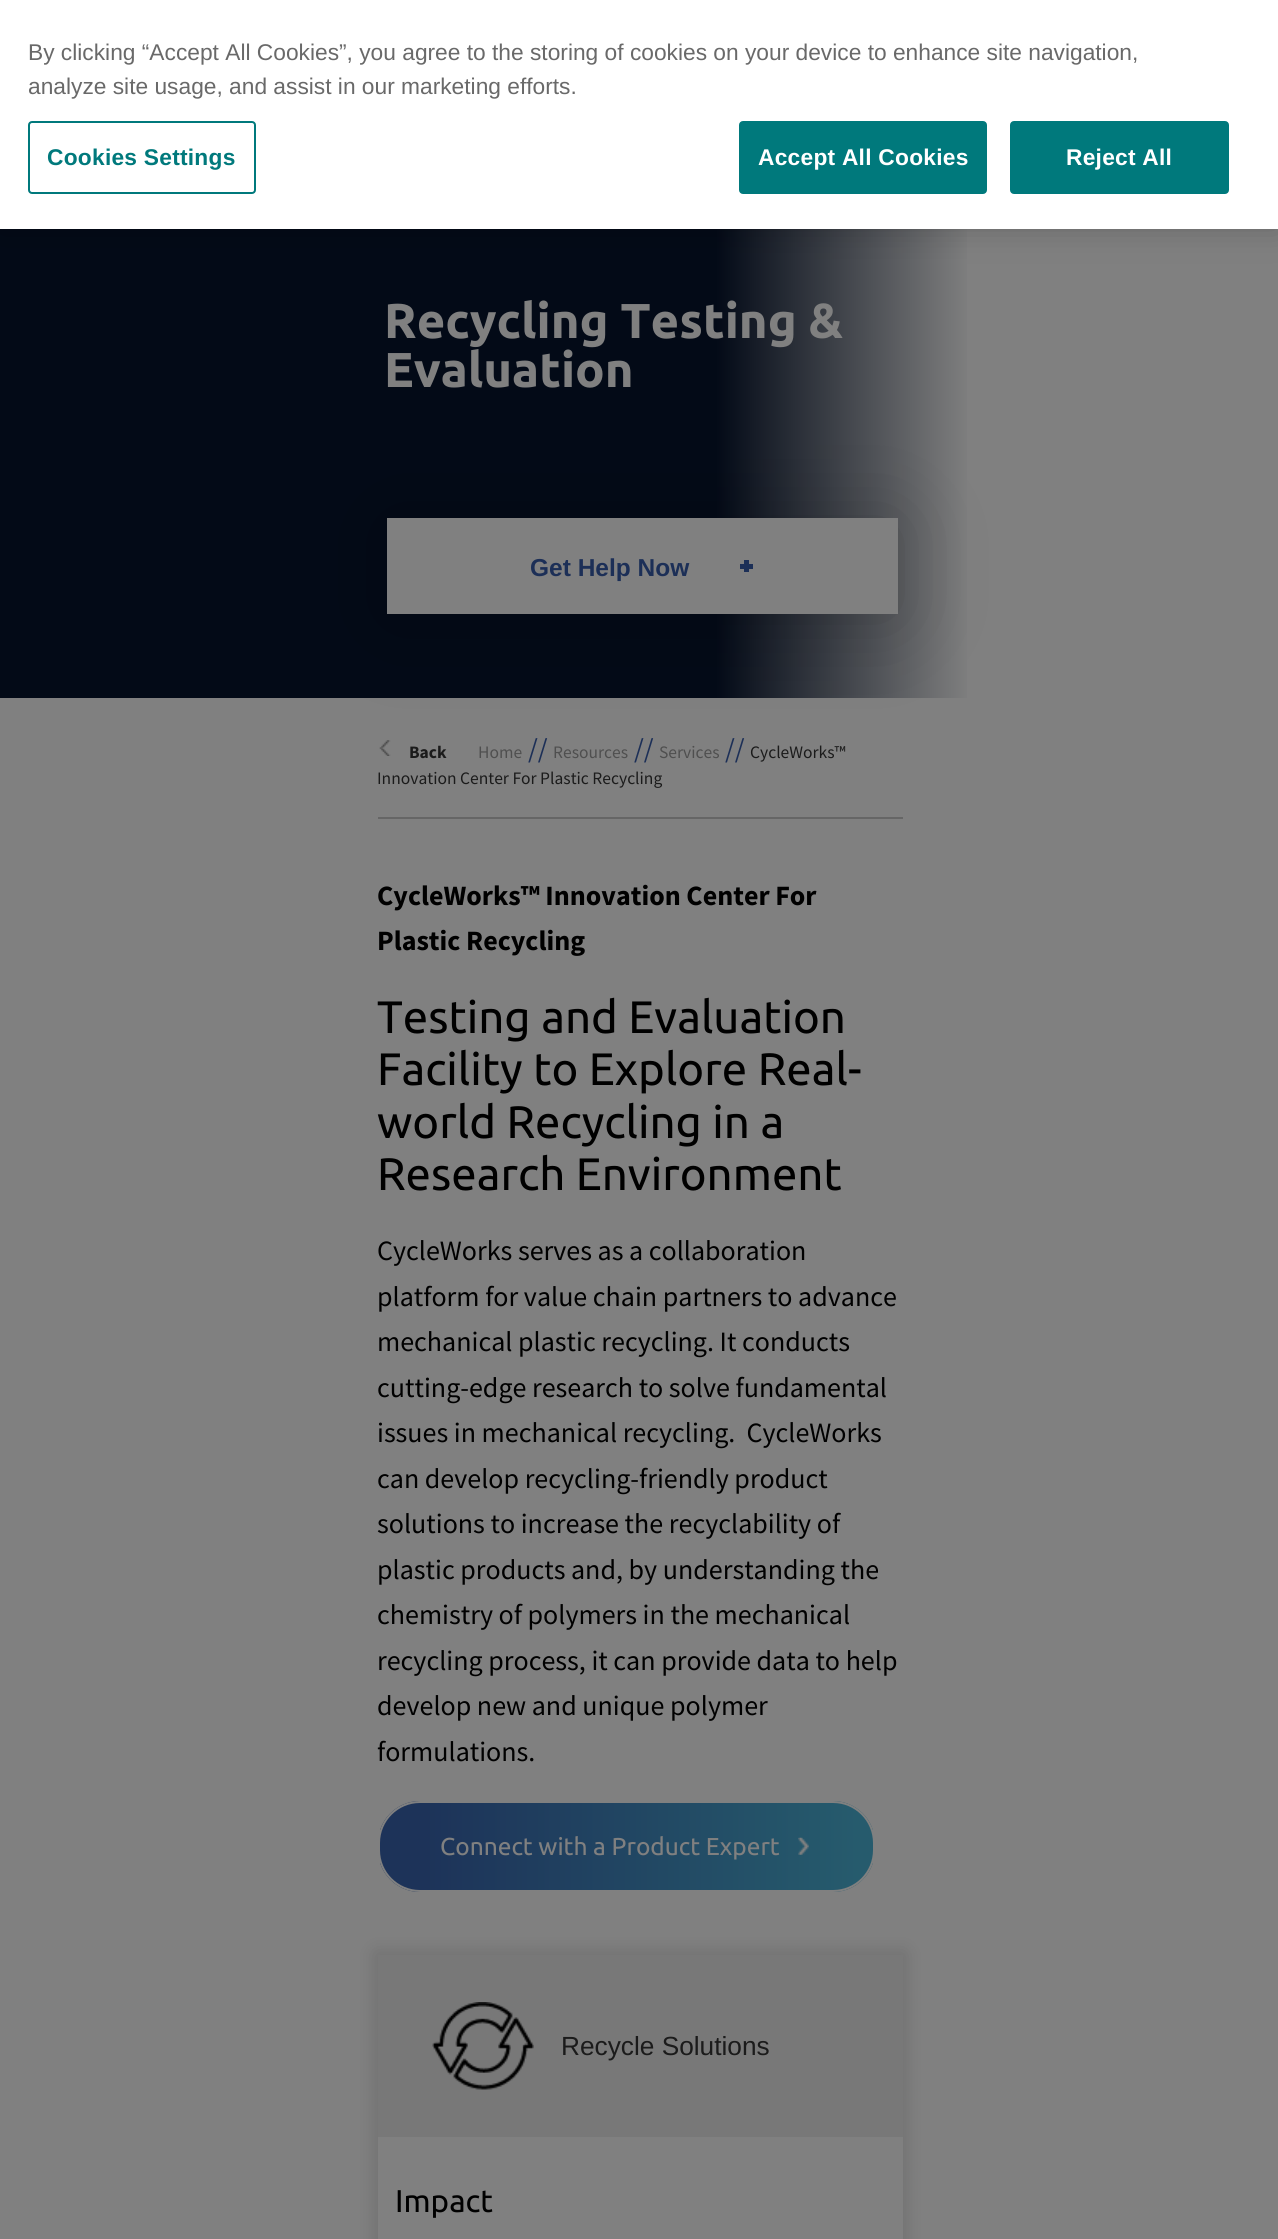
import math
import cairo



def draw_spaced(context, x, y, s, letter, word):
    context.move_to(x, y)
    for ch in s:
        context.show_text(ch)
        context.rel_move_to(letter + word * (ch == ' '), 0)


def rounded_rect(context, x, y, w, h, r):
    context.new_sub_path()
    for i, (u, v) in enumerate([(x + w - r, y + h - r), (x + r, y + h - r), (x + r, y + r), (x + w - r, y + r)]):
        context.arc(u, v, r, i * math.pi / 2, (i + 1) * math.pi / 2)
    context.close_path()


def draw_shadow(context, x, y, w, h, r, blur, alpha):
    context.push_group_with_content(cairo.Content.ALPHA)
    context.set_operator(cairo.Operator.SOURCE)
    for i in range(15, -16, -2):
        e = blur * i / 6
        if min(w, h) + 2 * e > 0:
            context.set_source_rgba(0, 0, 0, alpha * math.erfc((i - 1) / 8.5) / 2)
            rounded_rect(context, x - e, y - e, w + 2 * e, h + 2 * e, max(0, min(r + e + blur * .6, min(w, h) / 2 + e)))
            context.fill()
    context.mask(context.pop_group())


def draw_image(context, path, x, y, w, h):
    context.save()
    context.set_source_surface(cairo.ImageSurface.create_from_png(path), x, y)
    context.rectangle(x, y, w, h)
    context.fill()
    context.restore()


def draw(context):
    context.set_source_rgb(128 / 255, 128 / 255, 128 / 255)
    context.paint()
    gradient = cairo.LinearGradient(0, 419, 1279, 419)
    gradient.add_color_stop_rgba(0.56, 3 / 255, 10 / 255, 23 / 255, 1)
    gradient.add_color_stop_rgba(0.76, 128 / 255, 128 / 255, 128 / 255, 1)
    context.set_source(gradient)
    context.rectangle(0, 229, 967, 469)
    context.fill()
    context.set_source_rgb(0, 0, 0)
    draw_shadow(context, 0, 0, 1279, 229, 0, 16, 0.2)
    context.set_source_rgb(1, 1, 1)
    context.rectangle(0, 0, 1278, 229)
    context.fill()
    rounded_rect(context, 29, 122, 226, 71, 3)
    context.set_source_rgb(0, 121 / 255, 124 / 255)
    context.stroke()
    rounded_rect(context, 740, 122, 246, 71, 3)
    context.fill_preserve()
    context.stroke()
    rounded_rect(context, 1011, 122, 217, 71, 3)
    context.fill_preserve()
    context.stroke()
    draw_image(context, "images/1.png", 379, 740, 12, 16)
    context.set_source_rgb(0, 0, 0)
    draw_shadow(context, 387, 522, 511, 96, 0, 42, 0.2)
    context.set_source_rgb(128 / 255, 128 / 255, 128 / 255)
    context.rectangle(387, 518, 511, 96)
    context.fill()
    context.set_source_rgb(28 / 255, 47 / 255, 87 / 255)
    context.rectangle(740, 564, 13, 5)
    context.fill()
    context.rectangle(744, 560, 5, 12)
    context.fill()
    context.set_source_rgb(102 / 255, 102 / 255, 102 / 255)
    context.rectangle(378, 817, 525, 2)
    context.fill()
    context.save()
    rounded_rect(context, 378, 1801, 497, 91, 42)
    context.clip()
    gradient = cairo.LinearGradient(873, 1846, 380, 1846)
    gradient.add_color_stop_rgba(0.03, 38 / 255, 91 / 255, 109 / 255, 1)
    gradient.add_color_stop_rgba(0.91, 29 / 255, 51 / 255, 89 / 255, 1)
    context.set_source(gradient)
    context.rectangle(380, 1801, 493, 91)
    context.fill()
    context.restore()
    rounded_rect(context, 379, 1802, 495, 89, 41)
    context.set_source_rgb(128 / 255, 128 / 255, 128 / 255)
    context.stroke()
    draw_image(context, "images/2.png", 798, 1837, 11, 18)
    context.save()
    context.set_fill_rule(cairo.FillRule.EVEN_ODD)
    context.new_path()
    context.move_to(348, 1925)
    context.line_to(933, 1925)
    context.line_to(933, 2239)
    context.line_to(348, 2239)
    context.close_path()
    context.move_to(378, 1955)
    context.line_to(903, 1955)
    context.line_to(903, 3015)
    context.line_to(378, 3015)
    context.close_path()
    context.clip()
    context.set_source_rgb(0, 0, 0)
    draw_shadow(context, 376, 1953, 529, 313, 0, 9, 0.14)
    context.restore()
    context.set_source_rgb(120 / 255, 120 / 255, 120 / 255)
    context.rectangle(378, 1955, 525, 182)
    context.fill()
    draw_image(context, "images/3.png", 432, 2002, 102, 88)
    context.select_font_face("Liberation Sans")
    context.set_font_size(22.75)
    context.set_source_rgb(105 / 255, 105 / 255, 105 / 255)
    context.move_to(28, 60)
    context.show_text("By clicking “Accept All Cookies”, you agree to the storing of cookies on your device to enhance site navigation,")
    context.move_to(28, 94)
    context.show_text("analyze site usage, and assist in our marketing efforts.")
    context.select_font_face("Liberation Sans", cairo.FontSlant.NORMAL, cairo.FontWeight.BOLD)
    context.set_source_rgb(0, 121 / 255, 124 / 255)
    draw_spaced(context, 47, 165, "Cookies Settings", 0.25, 0)
    context.set_source_rgb(1, 1, 1)
    draw_spaced(context, 758, 165, "Accept All Cookies", 0.25, 0)
    draw_spaced(context, 1066, 165, "Reject All", 0.25, 0)
    context.select_font_face("Ubuntu", cairo.FontSlant.NORMAL, cairo.FontWeight.BOLD)
    context.set_font_size(49)
    context.set_source_rgb(128 / 255, 128 / 255, 128 / 255)
    context.move_to(384, 338)
    context.show_text("Recycling Testing &")
    context.move_to(384, 387)
    context.show_text("Evaluation")
    context.select_font_face("Liberation Sans", cairo.FontSlant.NORMAL, cairo.FontWeight.BOLD)
    context.set_font_size(24.5)
    context.set_source_rgb(28 / 255, 47 / 255, 87 / 255)
    context.move_to(530, 576)
    context.show_text("Get Help Now")
    context.select_font_face("Source Sans Pro", cairo.FontSlant.NORMAL, cairo.FontWeight.BOLD)
    context.set_font_size(17.5)
    context.set_source_rgb(27 / 255, 27 / 255, 27 / 255)
    context.move_to(409, 758)
    context.show_text("Back")
    context.select_font_face("Source Sans Pro")
    context.set_source_rgb(79 / 255, 79 / 255, 79 / 255)
    context.move_to(478, 758)
    context.show_text("Home")
    context.set_font_size(28)
    context.set_source_rgb(28 / 255, 47 / 255, 87 / 255)
    context.move_to(528, 758)
    context.show_text("//")
    context.set_font_size(17.5)
    context.set_source_rgb(79 / 255, 79 / 255, 79 / 255)
    context.move_to(553, 758)
    context.show_text("Resources")
    context.set_font_size(28)
    context.set_source_rgb(28 / 255, 47 / 255, 87 / 255)
    context.move_to(634, 758)
    context.show_text("//")
    context.set_font_size(17.5)
    context.set_source_rgb(79 / 255, 79 / 255, 79 / 255)
    context.move_to(659, 758)
    context.show_text("Services")
    context.set_font_size(28)
    context.set_source_rgb(28 / 255, 47 / 255, 87 / 255)
    context.move_to(725, 758)
    context.show_text("//")
    context.set_font_size(17.5)
    context.set_source_rgb(27 / 255, 27 / 255, 27 / 255)
    context.move_to(750, 758)
    context.show_text("CycleWorks™")
    context.move_to(377, 784)
    context.show_text("Innovation Center For Plastic Recycling")
    context.select_font_face("Source Sans Pro", cairo.FontSlant.NORMAL, cairo.FontWeight.BOLD)
    context.set_font_size(28)
    context.set_source_rgb(0, 0, 0)
    context.move_to(377, 905)
    context.show_text("CycleWorks™ Innovation Center For")
    context.move_to(377, 950)
    context.show_text("Plastic Recycling")
    context.select_font_face("Ubuntu")
    context.set_font_size(45.5)
    context.move_to(377, 1033)
    context.show_text("Testing and Evaluation")
    context.move_to(377, 1085)
    context.show_text("Facility to Explore Real-")
    context.move_to(377, 1138)
    context.show_text("world Recycling in a")
    context.move_to(377, 1190)
    context.show_text("Research Environment")
    context.select_font_face("Source Sans Pro")
    context.set_font_size(28)
    context.move_to(377, 1260)
    context.show_text("CycleWorks serves as a collaboration")
    context.move_to(377, 1306)
    context.show_text("platform for value chain partners to advance")
    context.move_to(377, 1351)
    context.show_text("mechanical plastic recycling. It conducts")
    context.move_to(377, 1397)
    context.show_text("cutting-edge research to solve fundamental")
    context.move_to(377, 1442)
    context.show_text("issues in mechanical recycling.  CycleWorks")
    context.move_to(377, 1488)
    context.show_text("can develop recycling-friendly product")
    context.move_to(377, 1533)
    context.show_text("solutions to increase the recyclability of")
    context.move_to(377, 1579)
    context.show_text("plastic products and, by understanding the")
    context.move_to(377, 1624)
    context.show_text("chemistry of polymers in the mechanical")
    context.move_to(377, 1670)
    context.show_text("recycling process, it can provide data to help")
    context.move_to(377, 1715)
    context.show_text("develop new and unique polymer")
    context.move_to(377, 1761)
    context.show_text("formulations.")
    context.select_font_face("Ubuntu")
    context.set_font_size(24.5)
    context.set_source_rgb(128 / 255, 128 / 255, 128 / 255)
    context.move_to(440, 1855)
    context.show_text("Connect with a Product Expert")
    context.select_font_face("Liberation Sans")
    context.set_font_size(26.25)
    context.set_source_rgb(27 / 255, 27 / 255, 27 / 255)
    context.move_to(561, 2055)
    context.show_text("Recycle Solutions")
    context.select_font_face("Ubuntu")
    context.set_font_size(31.5)
    context.set_source_rgb(0, 0, 0)
    context.move_to(395, 2212)
    context.show_text("Impact")


surface = cairo.ImageSurface(cairo.Format.RGB24, 1278, 2239)
context = cairo.Context(surface)
options = cairo.FontOptions()
options.set_hint_metrics(cairo.HintMetrics.OFF)
options.set_hint_style(cairo.HintStyle.NONE)
context.set_font_options(options)
context.set_miter_limit(4)
draw(context)
surface.write_to_png("out.png")
